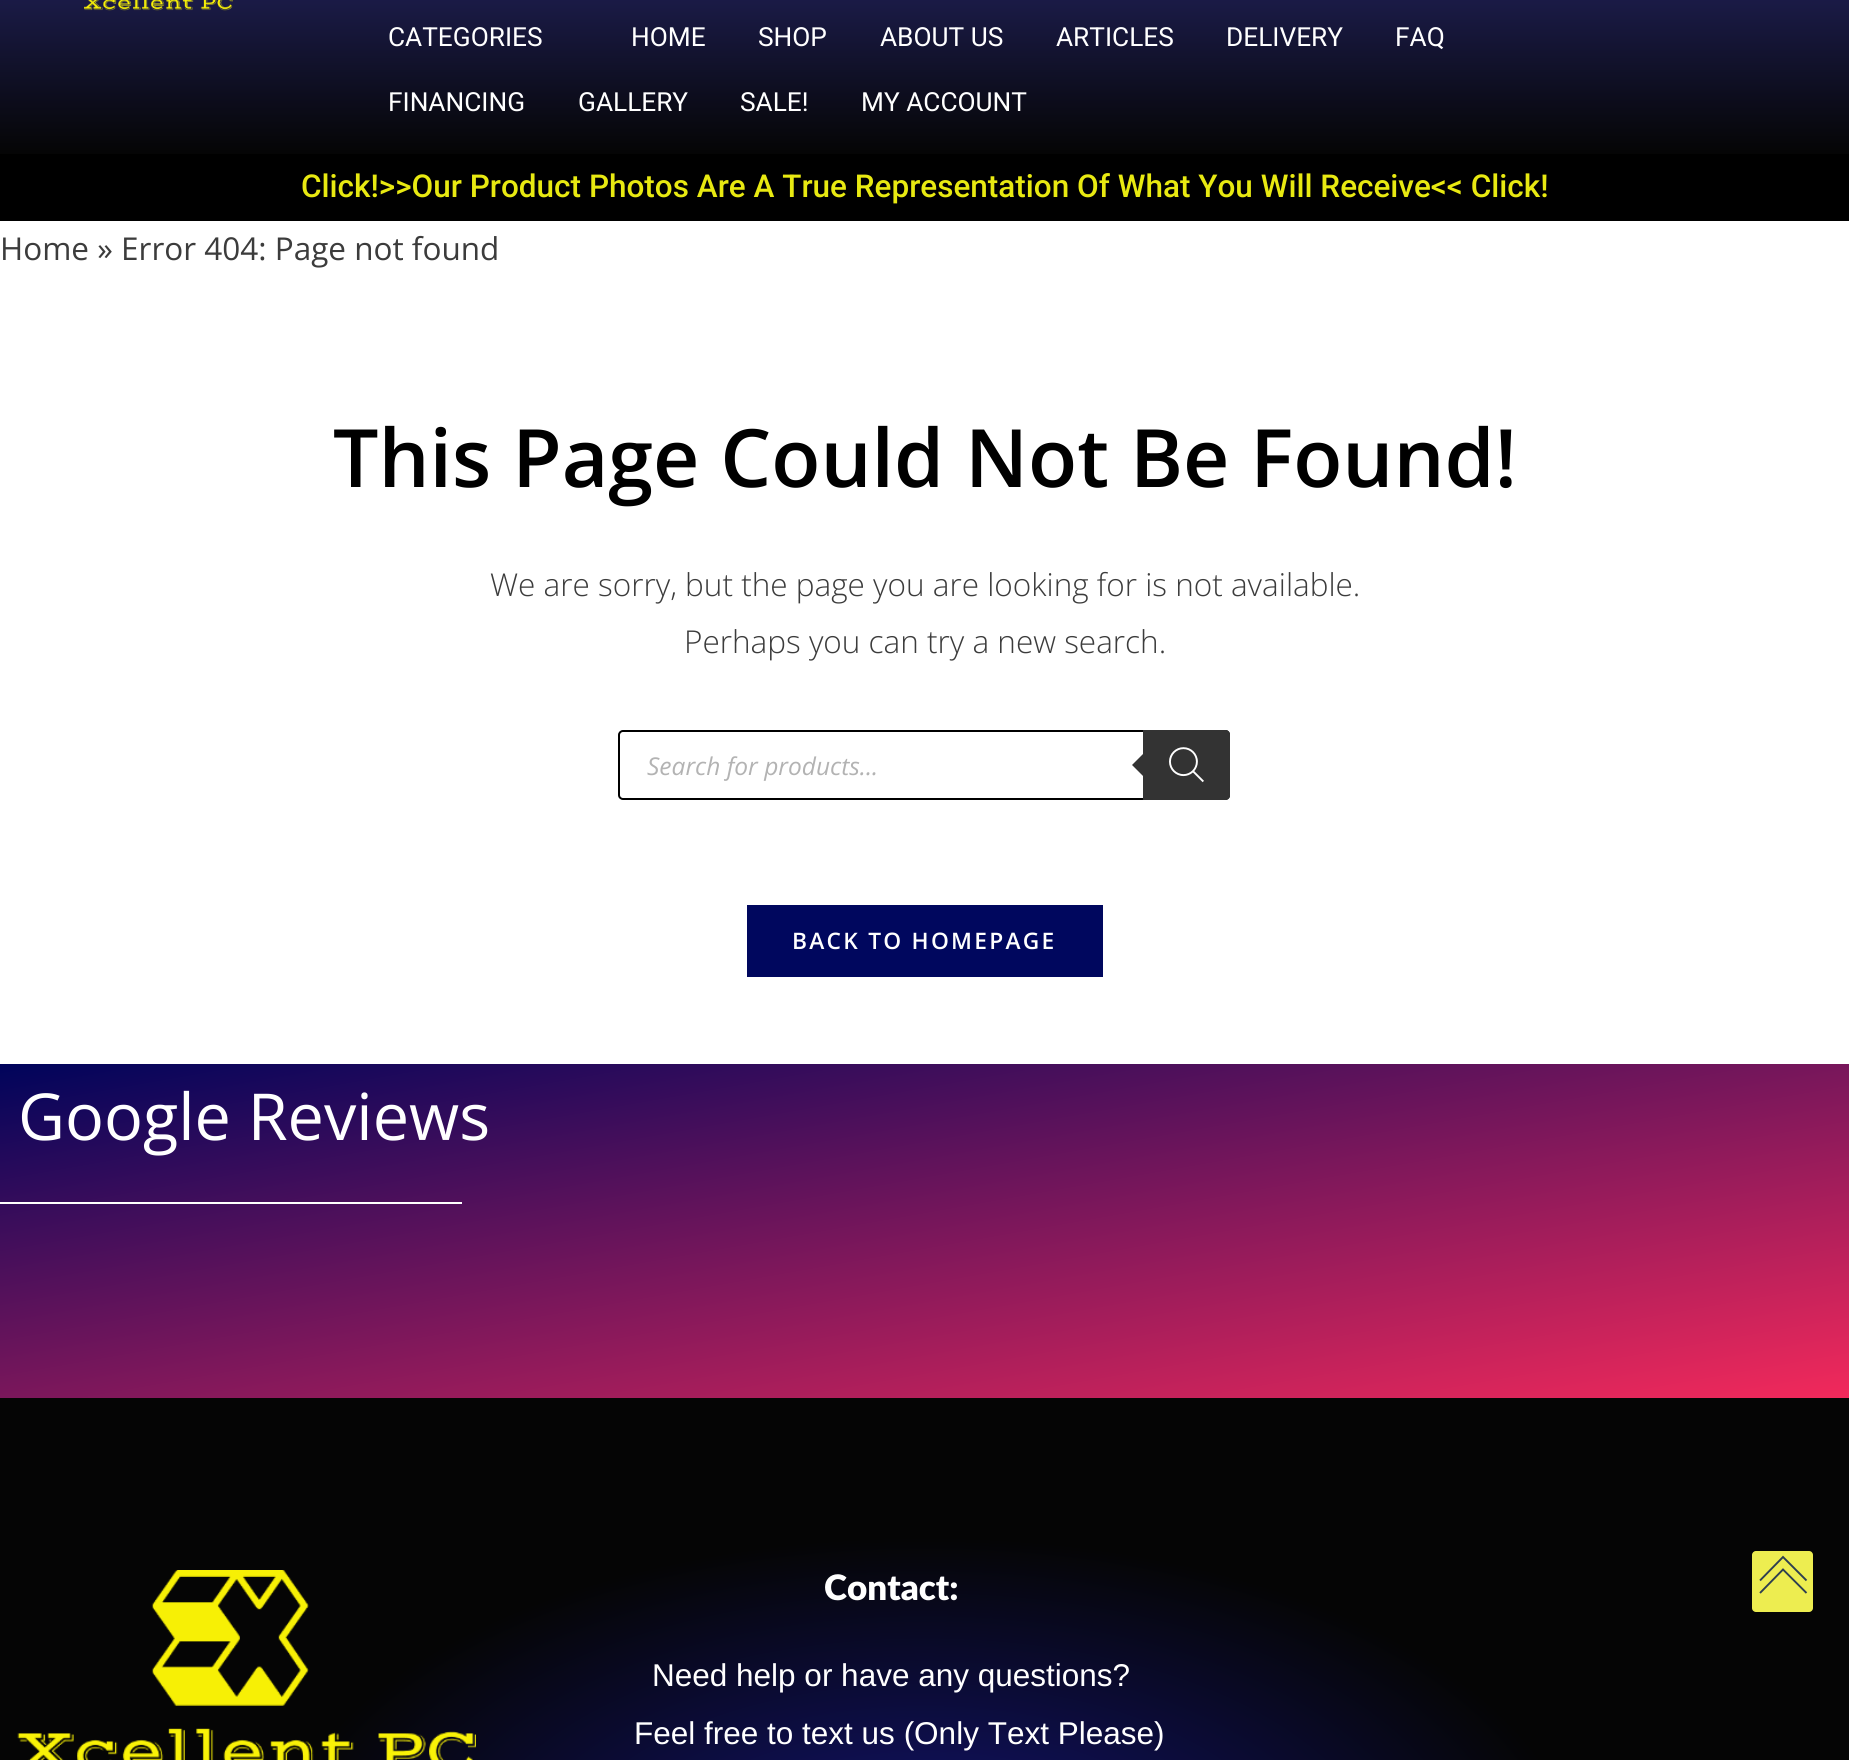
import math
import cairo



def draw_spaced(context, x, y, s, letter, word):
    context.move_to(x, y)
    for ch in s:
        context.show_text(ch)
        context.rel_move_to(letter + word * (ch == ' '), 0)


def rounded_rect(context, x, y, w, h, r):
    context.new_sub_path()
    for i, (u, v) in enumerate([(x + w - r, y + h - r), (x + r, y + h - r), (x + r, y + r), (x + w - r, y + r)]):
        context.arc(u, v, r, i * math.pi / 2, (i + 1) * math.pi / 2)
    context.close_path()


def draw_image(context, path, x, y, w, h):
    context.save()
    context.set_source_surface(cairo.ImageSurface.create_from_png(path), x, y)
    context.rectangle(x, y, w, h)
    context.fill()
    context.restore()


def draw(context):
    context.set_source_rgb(1, 1, 1)
    context.paint()
    gradient = cairo.LinearGradient(925, -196, 925, 154)
    gradient.add_color_stop_rgba(0, 53 / 255, 54 / 255, 153 / 255, 1)
    gradient.add_color_stop_rgba(1, 5 / 255, 5 / 255, 5 / 255, 1)
    context.set_source(gradient)
    context.rectangle(0, 0, 1849, 154)
    context.fill()
    draw_image(context, "images/1.png", 84, 0, 149, 11)
    context.set_source_rgb(0, 0, 0)
    context.rectangle(0, 154, 1849, 67)
    context.fill()
    rounded_rect(context, 619, 731, 610, 68, 4)
    context.stroke()
    context.set_source_rgb(51 / 255, 51 / 255, 51 / 255)
    context.new_path()
    context.move_to(1143, 730)
    context.line_to(1226, 730)
    context.curve_to(1228, 730, 1230, 732, 1230, 734)
    context.line_to(1230, 796)
    context.curve_to(1230, 798, 1228, 800, 1226, 800)
    context.line_to(1143, 800)
    context.close_path()
    context.fill()
    context.new_path()
    context.move_to(1146, 751)
    context.line_to(1146, 779)
    context.line_to(1132, 765)
    context.close_path()
    context.fill()
    draw_image(context, "images/2.png", 1169, 747, 35, 36)
    context.set_source_rgb(0, 7 / 255, 94 / 255)
    context.rectangle(747, 905, 356, 72)
    context.fill()
    gradient = cairo.LinearGradient(868, 911, 981, 1551)
    gradient.add_color_stop_rgba(0, 0, 4 / 255, 91 / 255, 1)
    gradient.add_color_stop_rgba(1, 242 / 255, 41 / 255, 91 / 255, 1)
    context.set_source(gradient)
    context.rectangle(0, 1064, 1849, 334)
    context.fill()
    context.set_source_rgb(1, 1, 1)
    context.rectangle(0, 1202, 462, 2)
    context.fill()
    gradient = cairo.RadialGradient(0, 0, 0, 0, 0, 1)
    gradient.set_matrix(cairo.Matrix(1 / 1308, 0, 0, 1 / 673, -1 * 925 / 1308, -1 * 1874 / 673))
    gradient.add_color_stop_rgba(0, 19 / 255, 20 / 255, 117 / 255, 1)
    gradient.add_color_stop_rgba(0.5, 5 / 255, 5 / 255, 5 / 255, 1)
    context.set_source(gradient)
    context.rectangle(0, 1398, 1849, 362)
    context.fill()
    draw_image(context, "images/3.png", 17, 1570, 459, 190)
    context.set_source_rgb(237 / 255, 237 / 255, 80 / 255)
    rounded_rect(context, 1752, 1551, 61, 61, 4)
    context.fill()
    context.new_path()
    context.move_to(1760, 1593)
    context.line_to(1783, 1569.5)
    context.line_to(1806.5, 1593)
    context.move_to(1760, 1580.5)
    context.line_to(1783, 1557)
    context.line_to(1806.5, 1580.5)
    context.set_source_rgb(45 / 255, 62 / 255, 80 / 255)
    context.set_line_width(1.9)
    context.stroke()
    context.select_font_face("Roboto")
    context.set_font_size(26.25)
    context.set_source_rgb(1, 1, 1)
    context.move_to(388, 46)
    context.show_text("CATEGORIES")
    context.move_to(631, 46)
    context.show_text("HOME")
    context.move_to(758, 46)
    context.show_text("SHOP")
    context.move_to(880, 46)
    context.show_text("ABOUT US")
    context.move_to(1056, 46)
    context.show_text("ARTICLES")
    context.move_to(1226, 46)
    context.show_text("DELIVERY")
    context.move_to(1395, 46)
    context.show_text("FAQ")
    context.move_to(388, 111)
    context.show_text("FINANCING")
    context.move_to(578, 111)
    context.show_text("GALLERY")
    context.move_to(740, 111)
    context.show_text("SALE!")
    context.move_to(861, 111)
    context.show_text("MY ACCOUNT")
    context.select_font_face("Roboto Medium")
    context.set_font_size(31.5)
    context.set_source_rgb(232 / 255, 233 / 255, 17 / 255)
    context.move_to(301, 197)
    context.show_text("Click!>>Our Product Photos Are A True Representation Of What You Will Receive<< Click!")
    context.select_font_face("Open Sans")
    context.set_source_rgb(60 / 255, 60 / 255, 60 / 255)
    context.move_to(0, 260)
    context.show_text("Home » Error 404: Page not found")
    context.select_font_face("Open Sans SemiBold")
    context.set_font_size(80.5)
    context.set_source_rgb(0, 0, 0)
    context.move_to(333, 487)
    context.show_text("This Page Could Not Be Found!")
    context.select_font_face("Open Sans Light")
    context.set_font_size(31.5)
    context.set_source_rgb(60 / 255, 60 / 255, 60 / 255)
    context.move_to(490, 596)
    context.show_text("We are sorry, but the page you are looking for is not available.")
    context.move_to(684, 653)
    context.show_text("Perhaps you can try a new search.")
    context.select_font_face("Open Sans", cairo.FontSlant.ITALIC)
    context.set_font_size(24.5)
    context.set_source_rgb(179 / 255, 179 / 255, 179 / 255)
    context.move_to(647, 775)
    context.show_text("Search for products...")
    context.select_font_face("Open Sans SemiBold")
    context.set_font_size(22.75)
    context.set_source_rgb(1, 1, 1)
    draw_spaced(context, 792, 949, "BACK TO HOMEPAGE", 2.25, 0)
    context.select_font_face("Open Sans")
    context.set_font_size(64.75)
    context.move_to(18, 1140)
    context.show_text("Google Reviews")
    context.select_font_face("Lato ExtraBold")
    context.set_font_size(35)
    context.move_to(824, 1600)
    context.show_text("Contact:")
    context.select_font_face("Liberation Sans")
    context.set_font_size(31.5)
    context.move_to(652, 1686)
    context.show_text("Need help or have any questions?")
    context.move_to(634, 1744)
    context.show_text("Feel free to text us (Only Text Please)")


surface = cairo.ImageSurface(cairo.Format.RGB24, 1849, 1760)
context = cairo.Context(surface)
options = cairo.FontOptions()
options.set_hint_metrics(cairo.HintMetrics.OFF)
options.set_hint_style(cairo.HintStyle.NONE)
context.set_font_options(options)
context.set_miter_limit(4)
draw(context)
surface.write_to_png("out.png")
